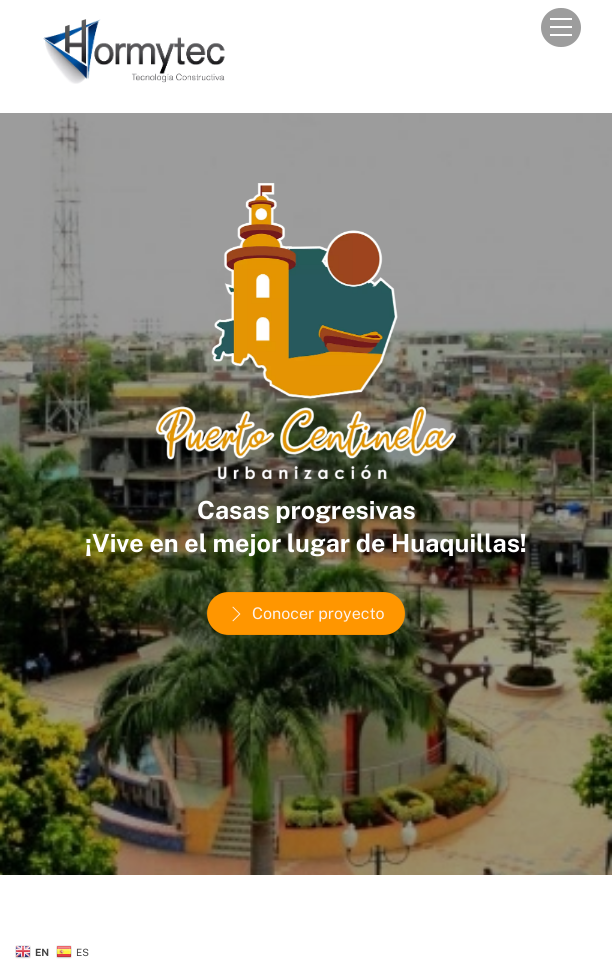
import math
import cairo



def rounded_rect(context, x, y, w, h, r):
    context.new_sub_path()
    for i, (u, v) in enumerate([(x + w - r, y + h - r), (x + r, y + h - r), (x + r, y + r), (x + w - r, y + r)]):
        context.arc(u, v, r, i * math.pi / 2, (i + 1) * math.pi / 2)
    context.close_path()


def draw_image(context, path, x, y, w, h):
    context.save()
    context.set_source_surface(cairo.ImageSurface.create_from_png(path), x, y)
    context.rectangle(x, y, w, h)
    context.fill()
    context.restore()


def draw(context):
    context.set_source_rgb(1, 1, 1)
    context.paint()
    draw_image(context, "images/1.png", 43, 19, 182, 65)
    context.set_source_rgb(157 / 255, 157 / 255, 157 / 255)
    rounded_rect(context, 541, 8, 40, 39, 19.5)
    context.fill()
    context.set_source_rgb(1, 1, 1)
    context.rectangle(550, 34, 22, 2)
    context.fill()
    context.rectangle(550, 18, 22, 2)
    context.fill()
    context.rectangle(550, 26, 22, 2)
    context.fill()
    draw_image(context, "images/2.png", 0, 113, 612, 762)
    draw_image(context, "images/3.png", 155, 183, 301, 296)
    context.set_source_rgb(1, 150 / 255, 0)
    rounded_rect(context, 207, 592, 198, 43, 21.5)
    context.fill()
    context.rectangle(207.5, 592.5, 197, 42)
    context.set_source_rgba(0, 0, 0, 0.05)
    context.set_line_width(1)
    context.stroke()
    draw_image(context, "images/4.png", 232, 606, 9, 16)
    draw_image(context, "images/5.png", 15, 945, 16, 14)
    draw_image(context, "images/6.png", 56, 945, 16, 14)
    context.select_font_face("Public Sans", cairo.FontSlant.NORMAL, cairo.FontWeight.BOLD)
    context.set_font_size(25)
    context.set_source_rgb(1, 1, 1)
    context.move_to(197, 519)
    context.show_text("Casas progresivas")
    context.move_to(85, 552)
    context.show_text("¡Vive en el mejor lugar de Huaquillas!")
    context.select_font_face("Public Sans")
    context.set_font_size(16)
    context.set_source_rgb(1, 242 / 255, 234 / 255)
    context.move_to(252, 619)
    context.show_text("Conocer proyecto")
    context.select_font_face("Public Sans", cairo.FontSlant.NORMAL, cairo.FontWeight.BOLD)
    context.set_font_size(10)
    context.set_source_rgb(67 / 255, 67 / 255, 67 / 255)
    context.move_to(35, 956)
    context.show_text("EN")
    context.select_font_face("Public Sans")
    context.move_to(76, 956)
    context.show_text("ES")


surface = cairo.ImageSurface(cairo.Format.RGB24, 612, 980)
context = cairo.Context(surface)
options = cairo.FontOptions()
options.set_hint_metrics(cairo.HintMetrics.OFF)
options.set_hint_style(cairo.HintStyle.NONE)
context.set_font_options(options)
context.set_miter_limit(4)
draw(context)
surface.write_to_png("out.png")
